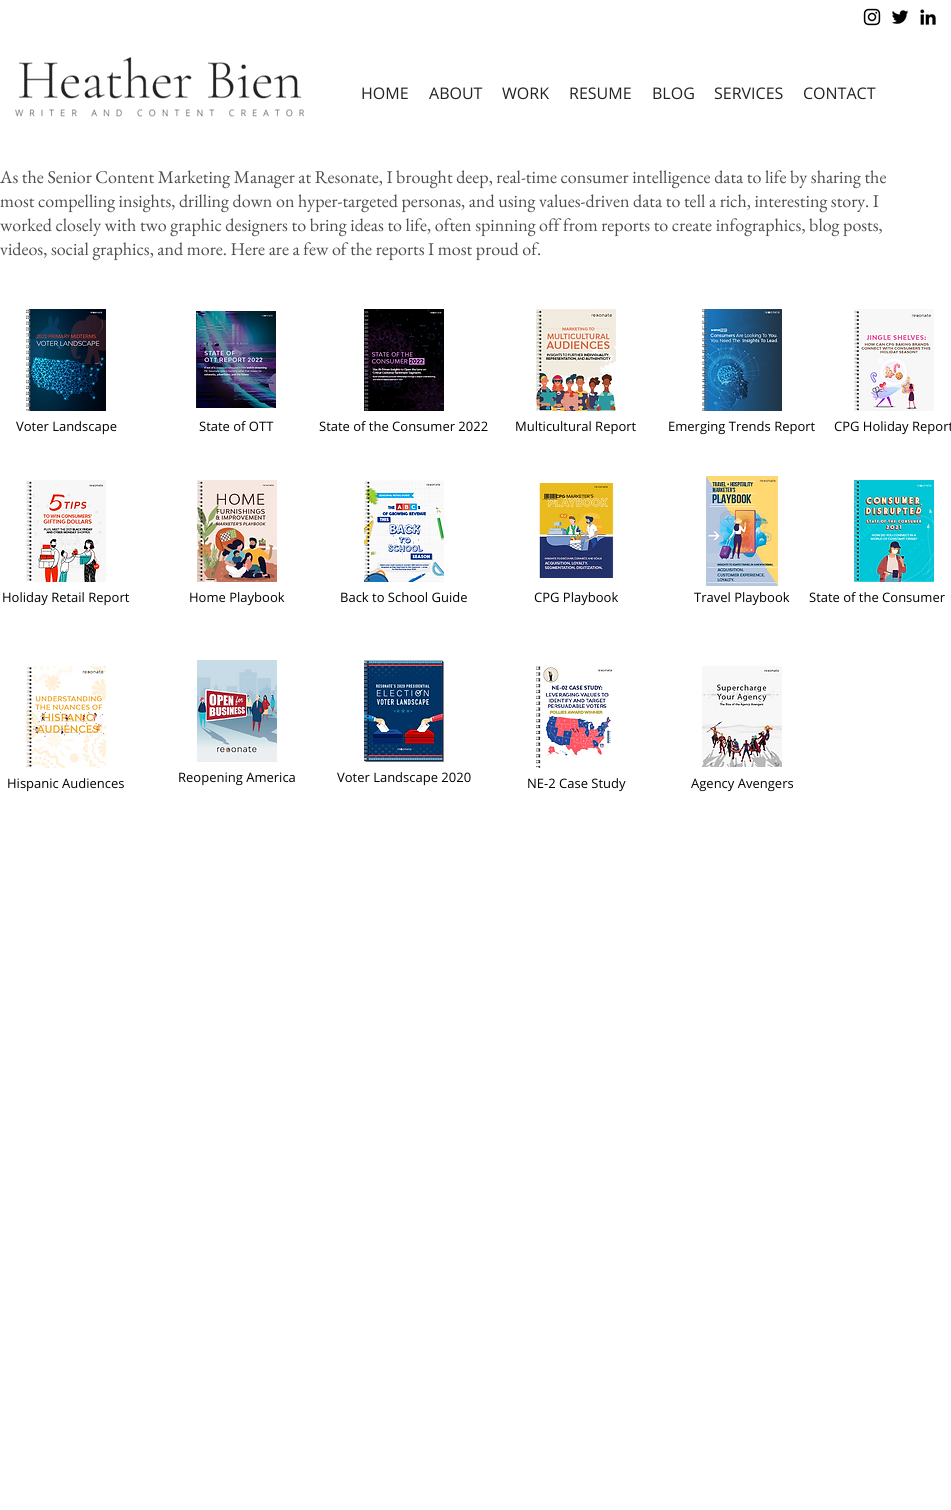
import math
import cairo



def draw_image(context, path, x, y, w, h):
    context.save()
    context.set_source_surface(cairo.ImageSurface.create_from_png(path), x, y)
    context.rectangle(x, y, w, h)
    context.fill()
    context.restore()


def draw(context):
    context.set_source_rgb(1, 1, 1)
    context.paint()
    draw_image(context, "images/1.png", 863, 8, 18, 18)
    draw_image(context, "images/2.png", 892, 10, 17, 14)
    draw_image(context, "images/3.png", 920, 9, 16, 16)
    draw_image(context, "images/4.png", 15, 57, 289, 60)
    draw_image(context, "images/5.png", 26, 309, 80, 102)
    draw_image(context, "images/6.png", 196, 311, 80, 97)
    draw_image(context, "images/7.png", 364, 309, 80, 102)
    draw_image(context, "images/8.png", 536, 309, 80, 102)
    draw_image(context, "images/9.png", 702, 309, 80, 102)
    draw_image(context, "images/10.png", 854, 309, 80, 102)
    draw_image(context, "images/11.png", 26, 480, 80, 102)
    draw_image(context, "images/12.png", 197, 480, 80, 102)
    draw_image(context, "images/13.png", 364, 480, 80, 102)
    draw_image(context, "images/14.png", 539, 483, 75, 95)
    draw_image(context, "images/15.png", 705, 476, 74, 110)
    draw_image(context, "images/16.png", 854, 480, 80, 102)
    draw_image(context, "images/17.png", 26, 666, 80, 102)
    draw_image(context, "images/18.png", 197, 660, 80, 102)
    draw_image(context, "images/19.png", 364, 660, 80, 102)
    draw_image(context, "images/20.png", 536, 666, 77, 102)
    draw_image(context, "images/21.png", 702, 666, 80, 101)
    context.select_font_face("Open Sans")
    context.set_font_size(16)
    context.set_source_rgb(34 / 255, 34 / 255, 34 / 255)
    context.move_to(361, 99)
    context.show_text("HOME")
    context.move_to(429, 99)
    context.show_text("ABOUT")
    context.move_to(502, 99)
    context.show_text("WORK")
    context.move_to(569, 99)
    context.show_text("RESUME")
    context.move_to(652, 99)
    context.show_text("BLOG")
    context.move_to(714, 99)
    context.show_text("SERVICES")
    context.move_to(803, 99)
    context.show_text("CONTACT")
    context.select_font_face("EB Garamond")
    context.set_font_size(18)
    context.set_source_rgb(77 / 255, 77 / 255, 77 / 255)
    context.move_to(0, 183)
    context.show_text("As the Senior Content Marketing Manager at Resonate, I brought deep, real-time consumer intelligence data to life by sharing the")
    context.move_to(0, 207)
    context.show_text("most compelling insights, drilling down on hyper-targeted personas, and using values-driven data to tell a rich, interesting story. I")
    context.move_to(0, 231)
    context.show_text("worked closely with two graphic designers to bring ideas to life, often spinning off from reports to create infographics, blog posts,")
    context.move_to(0, 255)
    context.show_text("videos, social graphics, and more. Here are a few of the reports I most proud of.")
    context.select_font_face("Open Sans")
    context.set_font_size(13)
    context.set_source_rgb(0, 0, 0)
    context.move_to(16, 431)
    context.show_text("Voter Landscape")
    context.move_to(199, 431)
    context.show_text("State of OTT")
    context.move_to(319, 431)
    context.show_text("State of the Consumer 2022")
    context.move_to(515, 431)
    context.show_text("Multicultural Report")
    context.move_to(668, 431)
    context.show_text("Emerging Trends Report")
    context.move_to(834, 431)
    context.show_text("CPG Holiday Report")
    context.move_to(2, 602)
    context.show_text("Holiday Retail Report")
    context.move_to(189, 602)
    context.show_text("Home Playbook")
    context.move_to(340, 602)
    context.show_text("Back to School Guide")
    context.move_to(534, 602)
    context.show_text("CPG Playbook")
    context.move_to(694, 602)
    context.show_text("Travel Playbook")
    context.move_to(809, 602)
    context.show_text("State of the Consumer")
    context.move_to(7, 788)
    context.show_text("Hispanic Audiences")
    context.move_to(178, 782)
    context.show_text("Reopening America")
    context.move_to(337, 782)
    context.show_text("Voter Landscape 2020")
    context.move_to(527, 788)
    context.show_text("NE-2 Case Study")
    context.move_to(691, 788)
    context.show_text("Agency Avengers")


surface = cairo.ImageSurface(cairo.Format.RGB24, 951, 1510)
context = cairo.Context(surface)
options = cairo.FontOptions()
options.set_hint_metrics(cairo.HintMetrics.OFF)
options.set_hint_style(cairo.HintStyle.NONE)
context.set_font_options(options)
context.set_miter_limit(4)
draw(context)
surface.write_to_png("out.png")
